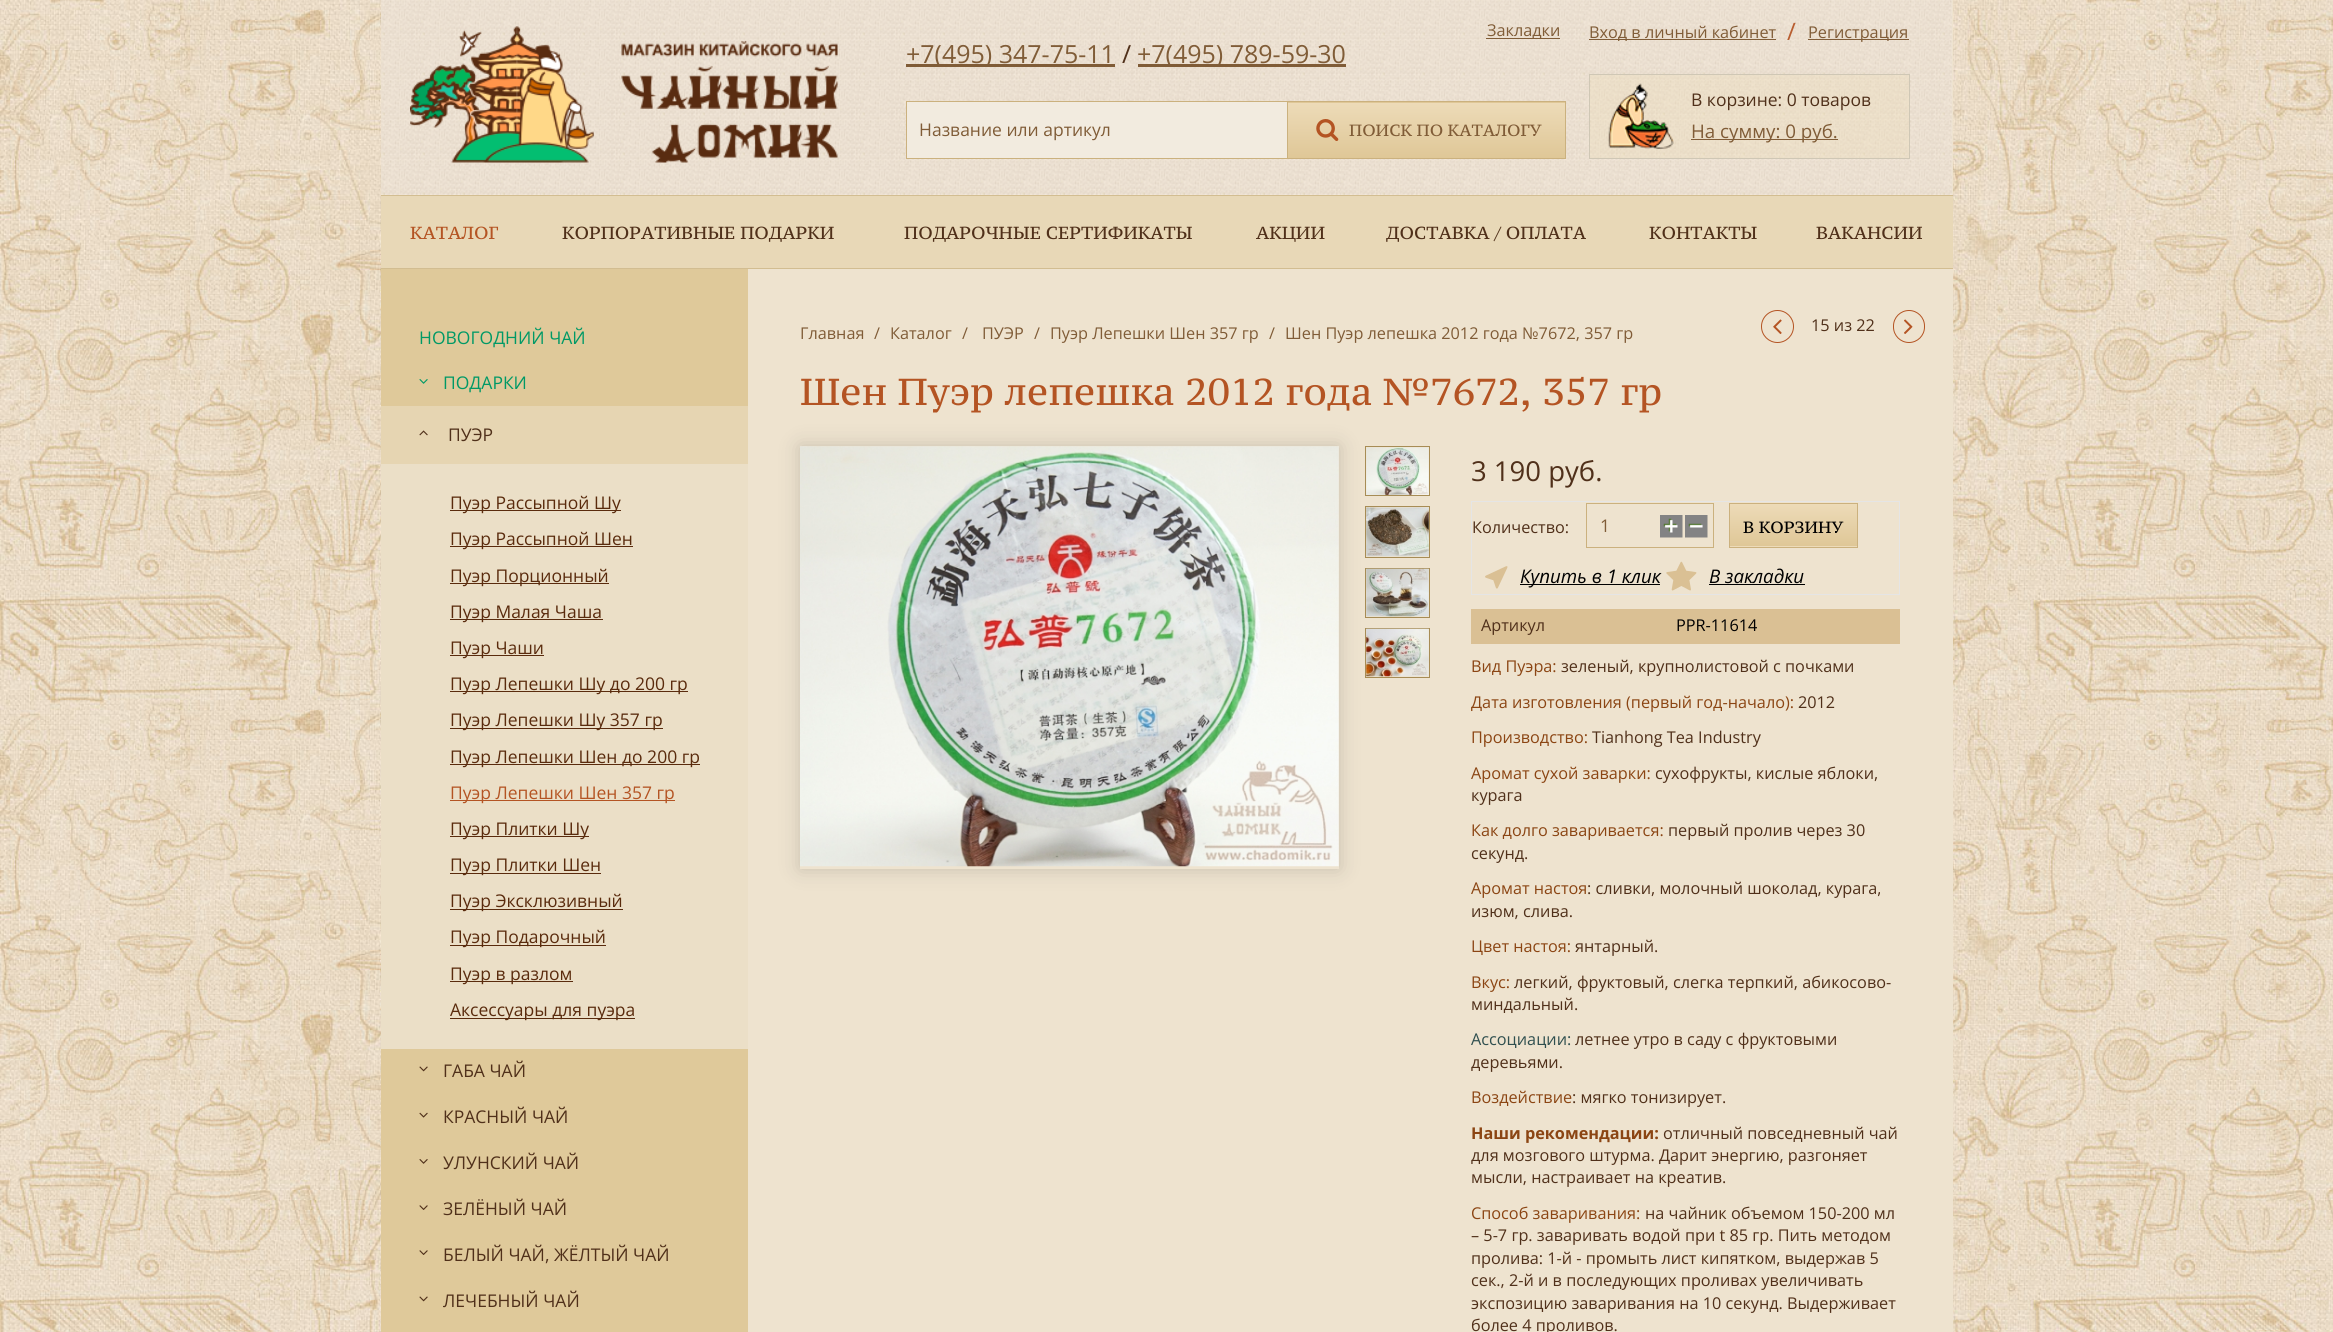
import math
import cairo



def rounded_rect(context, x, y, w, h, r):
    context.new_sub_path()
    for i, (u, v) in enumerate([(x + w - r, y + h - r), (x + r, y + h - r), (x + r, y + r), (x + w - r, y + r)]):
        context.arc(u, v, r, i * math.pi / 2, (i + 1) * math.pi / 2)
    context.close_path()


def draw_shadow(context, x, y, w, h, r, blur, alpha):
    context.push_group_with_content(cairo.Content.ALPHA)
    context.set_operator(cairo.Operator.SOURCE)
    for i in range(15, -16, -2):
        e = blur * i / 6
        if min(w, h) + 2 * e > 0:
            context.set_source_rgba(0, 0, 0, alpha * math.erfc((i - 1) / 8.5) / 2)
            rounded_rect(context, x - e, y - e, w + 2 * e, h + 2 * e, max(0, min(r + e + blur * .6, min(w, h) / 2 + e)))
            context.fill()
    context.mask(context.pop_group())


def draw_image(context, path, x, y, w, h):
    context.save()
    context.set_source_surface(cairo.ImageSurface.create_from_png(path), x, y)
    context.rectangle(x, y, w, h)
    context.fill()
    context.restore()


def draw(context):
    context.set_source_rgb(1, 1, 1)
    context.paint()
    draw_image(context, "images/1.png", 0, 0, 2333, 1332)
    context.set_source_rgb(238 / 255, 227 / 255, 207 / 255)
    context.rectangle(381, 0, 1572, 1332)
    context.fill()
    draw_image(context, "images/2.png", 381, 0, 1571, 195)
    draw_image(context, "images/3.png", 410, 26, 428, 137)
    context.set_source_rgb(128 / 255, 92 / 255, 55 / 255)
    context.rectangle(906, 64, 209, 3)
    context.fill()
    context.rectangle(1138, 64, 208, 3)
    context.fill()
    context.rectangle(1486, 38, 74, 1)
    context.fill()
    context.rectangle(1589, 39, 187, 1)
    context.fill()
    context.rectangle(1808, 39, 101, 1)
    context.fill()
    context.set_source_rgba(236 / 255, 218 / 255, 182 / 255, 0.32)
    context.rectangle(1590, 75, 319, 83)
    context.fill()
    draw_image(context, "images/4.png", 1608, 83, 66, 66)
    context.rectangle(1589.5, 74.5, 320, 84)
    context.set_source_rgb(207 / 255, 199 / 255, 181 / 255)
    context.set_line_width(1)
    context.stroke()
    context.set_source_rgb(128 / 255, 92 / 255, 55 / 255)
    context.rectangle(1691, 139, 147, 1)
    context.fill()
    context.set_source_rgb(242 / 255, 235 / 255, 223 / 255)
    context.rectangle(906.5, 101.5, 381, 57)
    context.fill_preserve()
    context.set_source_rgb(203 / 255, 177 / 255, 126 / 255)
    context.stroke()
    gradient = cairo.LinearGradient(1426, 103, 1426, 48)
    gradient.add_color_stop_rgba(0, 223 / 255, 199 / 255, 151 / 255, 1)
    gradient.add_color_stop_rgba(1, 237 / 255, 219 / 255, 184 / 255, 1)
    context.set_source(gradient)
    context.rectangle(1288, 102, 278, 1)
    context.fill()
    gradient = cairo.LinearGradient(1426, 158, 1426, 103)
    gradient.add_color_stop_rgba(0, 223 / 255, 199 / 255, 151 / 255, 1)
    gradient.add_color_stop_rgba(1, 237 / 255, 219 / 255, 184 / 255, 1)
    context.set_source(gradient)
    context.rectangle(1288, 103, 277, 55)
    context.fill()
    context.set_source_rgb(203 / 255, 177 / 255, 126 / 255)
    context.rectangle(1288, 101, 278, 1)
    context.fill()
    context.rectangle(1565, 101, 1, 58)
    context.fill()
    context.rectangle(1288, 158, 278, 1)
    context.fill()
    draw_image(context, "images/5.png", 1316, 119, 23, 22)
    context.set_source_rgb(232 / 255, 216 / 255, 183 / 255)
    context.rectangle(381, 196, 1572, 72)
    context.fill()
    context.set_source_rgb(210 / 255, 189 / 255, 145 / 255)
    context.rectangle(381, 195, 1572, 1)
    context.fill()
    context.rectangle(381, 268, 1572, 1)
    context.fill()
    context.set_source_rgb(223 / 255, 201 / 255, 154 / 255)
    context.rectangle(381, 269, 367, 1063)
    context.fill()
    draw_image(context, "images/6.png", 419, 379, 9, 5)
    context.set_source_rgb(230 / 255, 213 / 255, 178 / 255)
    context.rectangle(381, 406, 367, 58)
    context.fill()
    draw_image(context, "images/7.png", 419, 430, 9, 6)
    context.set_source_rgb(235 / 255, 223 / 255, 199 / 255)
    context.rectangle(381, 464, 367, 585)
    context.fill()
    context.set_source_rgb(90 / 255, 43 / 255, 13 / 255)
    context.rectangle(450, 510, 171, 1)
    context.fill()
    context.rectangle(450, 546, 183, 1)
    context.fill()
    context.rectangle(450, 583, 159, 1)
    context.fill()
    context.rectangle(450, 619, 153, 1)
    context.fill()
    context.rectangle(450, 655, 94, 1)
    context.fill()
    context.rectangle(450, 691, 238, 1)
    context.fill()
    context.rectangle(450, 728, 213, 1)
    context.fill()
    context.rectangle(450, 764, 250, 1)
    context.fill()
    context.set_source_rgb(180 / 255, 84 / 255, 35 / 255)
    context.rectangle(450, 800, 225, 1)
    context.fill()
    context.set_source_rgb(90 / 255, 43 / 255, 13 / 255)
    context.rectangle(450, 836, 139, 1)
    context.fill()
    context.rectangle(450, 873, 151, 1)
    context.fill()
    context.rectangle(450, 909, 173, 1)
    context.fill()
    context.rectangle(450, 945, 156, 1)
    context.fill()
    context.rectangle(450, 981, 123, 1)
    context.fill()
    context.rectangle(450, 1018, 185, 1)
    context.fill()
    draw_image(context, "images/8.png", 419, 1066, 9, 6)
    draw_image(context, "images/9.png", 419, 1112, 9, 6)
    draw_image(context, "images/10.png", 419, 1159, 9, 5)
    draw_image(context, "images/11.png", 419, 1205, 9, 5)
    draw_image(context, "images/11.png", 419, 1250, 9, 5)
    draw_image(context, "images/8.png", 419, 1296, 9, 6)
    context.arc(1777.5, 326.5, 16, 0, 2 * math.pi)
    context.set_source_rgb(180 / 255, 84 / 255, 35 / 255)
    context.stroke()
    draw_image(context, "images/12.png", 1773, 319, 9, 15)
    rounded_rect(context, 1893.5, 310.5, 31, 32, 15.5)
    context.stroke()
    draw_image(context, "images/13.png", 1904, 319, 9, 15)
    context.rectangle(1365.5, 446.5, 64, 49)
    context.set_source_rgb(167 / 255, 140 / 255, 85 / 255)
    context.stroke()
    draw_image(context, "images/15.png", 1366, 447, 63, 48)
    context.rectangle(1365.5, 506.5, 64, 51)
    context.stroke()
    draw_image(context, "images/16.png", 1366, 507, 63, 50)
    context.rectangle(1365.5, 568.5, 64, 49)
    context.stroke()
    draw_image(context, "images/17.png", 1366, 568, 63, 49)
    context.rectangle(1365.5, 628.5, 64, 49)
    context.stroke()
    draw_image(context, "images/18.png", 1366, 628, 63, 49)
    context.save()
    context.set_fill_rule(cairo.FillRule.EVEN_ODD)
    context.new_path()
    context.move_to(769, 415)
    context.line_to(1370, 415)
    context.line_to(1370, 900)
    context.line_to(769, 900)
    context.close_path()
    context.move_to(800, 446)
    context.line_to(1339, 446)
    context.line_to(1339, 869)
    context.line_to(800, 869)
    context.close_path()
    context.clip()
    context.set_source_rgb(24 / 255, 24 / 255, 25 / 255)
    draw_shadow(context, 800, 446, 539, 423, 0, 10, 0.18)
    context.restore()
    draw_image(context, "images/14.png", 800, 446, 539, 421)
    context.rectangle(1471.5, 501.5, 428, 93)
    context.set_source_rgb(229 / 255, 229 / 255, 229 / 255)
    context.stroke()
    context.rectangle(1586.5, 503.5, 127, 44)
    context.set_source_rgb(203 / 255, 177 / 255, 126 / 255)
    context.stroke()
    draw_image(context, "images/19.png", 1660, 515, 23, 23)
    draw_image(context, "images/20.png", 1685, 515, 23, 23)
    gradient = cairo.LinearGradient(1793, 546, 1793, 504)
    gradient.add_color_stop_rgba(0, 223 / 255, 199 / 255, 151 / 255, 1)
    gradient.add_color_stop_rgba(1, 237 / 255, 219 / 255, 184 / 255, 1)
    context.set_source(gradient)
    context.rectangle(1730, 504, 127, 42)
    context.fill()
    gradient = cairo.LinearGradient(1793, 589, 1793, 546)
    gradient.add_color_stop_rgba(0, 223 / 255, 199 / 255, 151 / 255, 1)
    gradient.add_color_stop_rgba(1, 237 / 255, 219 / 255, 184 / 255, 1)
    context.set_source(gradient)
    context.rectangle(1729, 546, 129, 1)
    context.fill()
    context.rectangle(1729.5, 503.5, 128, 44)
    context.set_source_rgb(203 / 255, 177 / 255, 126 / 255)
    context.stroke()
    draw_image(context, "images/21.png", 1485, 566, 23, 23)
    context.set_source_rgb(0, 0, 0)
    context.rectangle(1520, 584, 140, 1)
    context.fill()
    draw_image(context, "images/22.png", 1666, 561, 31, 30)
    context.rectangle(1709, 584, 96, 1)
    context.fill()
    context.set_source_rgb(218 / 255, 192 / 255, 148 / 255)
    context.rectangle(1471, 609, 429, 35)
    context.fill()
    context.select_font_face("Open Sans")
    context.set_font_size(25)
    context.set_source_rgb(128 / 255, 92 / 255, 55 / 255)
    context.move_to(906, 63)
    context.show_text("+7(495) 347-75-11")
    context.set_source_rgb(80 / 255, 48 / 255, 26 / 255)
    context.move_to(1122, 63)
    context.show_text("/")
    context.set_source_rgb(128 / 255, 92 / 255, 55 / 255)
    context.move_to(1137, 63)
    context.show_text("+7(495) 789-59-30")
    context.set_font_size(16.25)
    context.move_to(1487, 36)
    context.show_text("Закладки")
    context.move_to(1589, 38)
    context.show_text("Вход в личный кабинет")
    context.set_font_size(24)
    context.set_source_rgb(184 / 255, 94 / 255, 48 / 255)
    context.move_to(1787, 40)
    context.show_text("/")
    context.set_font_size(16.25)
    context.set_source_rgb(128 / 255, 92 / 255, 55 / 255)
    context.move_to(1808, 38)
    context.show_text("Регистрация")
    context.set_font_size(17.5)
    context.set_source_rgb(80 / 255, 48 / 255, 26 / 255)
    context.move_to(1691, 106)
    context.show_text("В корзине: 0 товаров")
    context.set_font_size(18.75)
    context.set_source_rgb(128 / 255, 92 / 255, 55 / 255)
    context.move_to(1691, 138)
    context.show_text("На сумму: 0 руб.")
    context.set_font_size(17.5)
    context.move_to(919, 136)
    context.show_text("Название или артикул")
    context.select_font_face("PT Serif Caption")
    context.set_font_size(16.25)
    context.move_to(1349, 136)
    context.show_text("ПОИСК ПО КАТАЛОГУ")
    context.set_font_size(17.5)
    context.set_source_rgb(180 / 255, 84 / 255, 35 / 255)
    context.move_to(410, 239)
    context.show_text("КАТАЛОГ")
    context.set_source_rgb(80 / 255, 48 / 255, 26 / 255)
    context.move_to(562, 239)
    context.show_text("КОРПОРАТИВНЫЕ ПОДАРКИ")
    context.move_to(904, 239)
    context.show_text("ПОДАРОЧНЫЕ СЕРТИФИКАТЫ")
    context.move_to(1256, 239)
    context.show_text("АКЦИИ")
    context.move_to(1386, 239)
    context.show_text("ДОСТАВКА / ОПЛАТА")
    context.move_to(1649, 239)
    context.show_text("КОНТАКТЫ")
    context.move_to(1816, 239)
    context.show_text("ВАКАНСИИ")
    context.select_font_face("Open Sans")
    context.set_source_rgb(0, 153 / 255, 102 / 255)
    context.move_to(419, 344)
    context.show_text("НОВОГОДНИЙ ЧАЙ")
    context.move_to(443, 389)
    context.show_text("ПОДАРКИ")
    context.set_source_rgb(80 / 255, 48 / 255, 26 / 255)
    context.move_to(448, 441)
    context.show_text("ПУЭР")
    context.set_source_rgb(90 / 255, 43 / 255, 13 / 255)
    context.move_to(450, 509)
    context.show_text("Пуэр Рассыпной Шу")
    context.move_to(450, 545)
    context.show_text("Пуэр Рассыпной Шен")
    context.move_to(450, 582)
    context.show_text("Пуэр Порционный")
    context.move_to(450, 618)
    context.show_text("Пуэр Малая Чаша")
    context.move_to(450, 654)
    context.show_text("Пуэр Чаши")
    context.move_to(450, 690)
    context.show_text("Пуэр Лепешки Шу до 200 гр")
    context.move_to(450, 726)
    context.show_text("Пуэр Лепешки Шу 357 гр")
    context.move_to(450, 763)
    context.show_text("Пуэр Лепешки Шен до 200 гр")
    context.set_source_rgb(180 / 255, 84 / 255, 35 / 255)
    context.move_to(450, 799)
    context.show_text("Пуэр Лепешки Шен 357 гр")
    context.set_source_rgb(90 / 255, 43 / 255, 13 / 255)
    context.move_to(450, 835)
    context.show_text("Пуэр Плитки Шу")
    context.move_to(450, 871)
    context.show_text("Пуэр Плитки Шен")
    context.move_to(450, 907)
    context.show_text("Пуэр Эксклюзивный")
    context.move_to(450, 943)
    context.show_text("Пуэр Подарочный")
    context.move_to(450, 980)
    context.show_text("Пуэр в разлом")
    context.move_to(450, 1016)
    context.show_text("Аксессуары для пуэра")
    context.set_source_rgb(80 / 255, 48 / 255, 26 / 255)
    context.move_to(443, 1077)
    context.show_text("ГАБА ЧАЙ")
    context.move_to(443, 1123)
    context.show_text("КРАСНЫЙ ЧАЙ")
    context.move_to(443, 1169)
    context.show_text("УЛУНСКИЙ ЧАЙ")
    context.move_to(443, 1215)
    context.show_text("ЗЕЛЁНЫЙ ЧАЙ")
    context.move_to(443, 1261)
    context.show_text("БЕЛЫЙ ЧАЙ, ЖЁЛТЫЙ ЧАЙ")
    context.move_to(443, 1307)
    context.show_text("ЛЕЧЕБНЫЙ ЧАЙ")
    context.set_font_size(16.25)
    context.move_to(1811, 331)
    context.show_text("15 из 22")
    context.set_source_rgb(128 / 255, 92 / 255, 55 / 255)
    context.move_to(800, 339)
    context.show_text("Главная")
    context.move_to(874, 339)
    context.show_text("/")
    context.move_to(890, 339)
    context.show_text("Каталог")
    context.move_to(962, 339)
    context.show_text("/")
    context.move_to(982, 339)
    context.show_text("ПУЭР")
    context.move_to(1034, 339)
    context.show_text("/")
    context.move_to(1050, 339)
    context.show_text("Пуэр Лепешки Шен 357 гр")
    context.move_to(1269, 339)
    context.show_text("/")
    context.move_to(1285, 339)
    context.show_text("Шен Пуэр лепешка 2012 года №7672, 357 гр")
    context.select_font_face("PT Serif Caption")
    context.set_font_size(37.5)
    context.set_source_rgb(180 / 255, 84 / 255, 35 / 255)
    context.move_to(800, 405)
    context.show_text("Шен Пуэр лепешка 2012 года №7672, 357 гр")
    context.select_font_face("Open Sans")
    context.set_font_size(27.5)
    context.set_source_rgb(80 / 255, 48 / 255, 26 / 255)
    context.move_to(1471, 481)
    context.show_text("3 190 руб.")
    context.set_font_size(16.25)
    context.move_to(1472, 533)
    context.show_text("Количество:")
    context.set_font_size(17.5)
    context.set_source_rgb(128 / 255, 92 / 255, 55 / 255)
    context.move_to(1600, 532)
    context.show_text("1")
    context.select_font_face("PT Serif Caption")
    context.set_font_size(16.25)
    context.set_source_rgb(0, 0, 0)
    context.move_to(1743, 533)
    context.show_text("В КОРЗИНУ")
    context.select_font_face("Open Sans", cairo.FontSlant.ITALIC)
    context.set_font_size(18.75)
    context.move_to(1520, 583)
    context.show_text("Купить в 1 клик")
    context.move_to(1709, 583)
    context.show_text("В закладки")
    context.select_font_face("Open Sans")
    context.set_font_size(16.25)
    context.set_source_rgb(80 / 255, 48 / 255, 26 / 255)
    context.move_to(1481, 631)
    context.show_text("Артикул")
    context.set_source_rgb(0, 0, 0)
    context.move_to(1676, 631)
    context.show_text("PPR-11614")
    context.set_source_rgb(139 / 255, 69 / 255, 19 / 255)
    context.move_to(1471, 672)
    context.show_text("Вид Пуэра:")
    context.set_source_rgb(80 / 255, 48 / 255, 26 / 255)
    context.move_to(1561, 672)
    context.show_text("зеленый, крупнолистовой с почками")
    context.set_source_rgb(139 / 255, 69 / 255, 19 / 255)
    context.move_to(1471, 708)
    context.show_text("Дата изготовления (первый год-начало):")
    context.set_source_rgb(80 / 255, 48 / 255, 26 / 255)
    context.move_to(1798, 708)
    context.show_text("2012")
    context.set_source_rgb(139 / 255, 69 / 255, 19 / 255)
    context.move_to(1471, 743)
    context.show_text("Производство:")
    context.set_source_rgb(80 / 255, 48 / 255, 26 / 255)
    context.move_to(1592, 743)
    context.show_text("Tianhong Tea Industry")
    context.set_source_rgb(139 / 255, 69 / 255, 19 / 255)
    context.move_to(1471, 779)
    context.show_text("Аромат сухой заварки:")
    context.set_source_rgb(80 / 255, 48 / 255, 26 / 255)
    context.move_to(1655, 779)
    context.show_text("сухофрукты, кислые яблоки,")
    context.move_to(1471, 801)
    context.show_text("курага")
    context.set_source_rgb(139 / 255, 69 / 255, 19 / 255)
    context.move_to(1471, 836)
    context.show_text("Как долго заваривается:")
    context.set_source_rgb(80 / 255, 48 / 255, 26 / 255)
    context.move_to(1668, 836)
    context.show_text("первый пролив через 30")
    context.move_to(1471, 859)
    context.show_text("секунд.")
    context.set_source_rgb(139 / 255, 69 / 255, 19 / 255)
    context.move_to(1471, 894)
    context.show_text("Аромат настоя")
    context.set_source_rgb(80 / 255, 48 / 255, 26 / 255)
    context.move_to(1587, 894)
    context.show_text(": сливки, молочный шоколад, курага,")
    context.move_to(1471, 917)
    context.show_text("изюм, слива.")
    context.set_source_rgb(139 / 255, 69 / 255, 19 / 255)
    context.move_to(1471, 952)
    context.show_text("Цвет настоя:")
    context.set_source_rgb(80 / 255, 48 / 255, 26 / 255)
    context.move_to(1575, 952)
    context.show_text("янтарный.")
    context.set_source_rgb(139 / 255, 69 / 255, 19 / 255)
    context.move_to(1471, 988)
    context.show_text("Вкус:")
    context.set_source_rgb(80 / 255, 48 / 255, 26 / 255)
    context.move_to(1514, 988)
    context.show_text("легкий, фруктовый, слегка терпкий, абикосово-")
    context.move_to(1471, 1010)
    context.show_text("миндальный.")
    context.set_source_rgb(47 / 255, 79 / 255, 79 / 255)
    context.move_to(1471, 1045)
    context.show_text("Ассоциации:")
    context.set_source_rgb(80 / 255, 48 / 255, 26 / 255)
    context.move_to(1575, 1045)
    context.show_text("летнее утро в саду с фруктовыми")
    context.move_to(1471, 1068)
    context.show_text("деревьями.")
    context.set_source_rgb(139 / 255, 69 / 255, 19 / 255)
    context.move_to(1471, 1103)
    context.show_text("Воздействие")
    context.set_source_rgb(80 / 255, 48 / 255, 26 / 255)
    context.move_to(1572, 1103)
    context.show_text(": мягко тонизирует.")
    context.select_font_face("Open Sans", cairo.FontSlant.NORMAL, cairo.FontWeight.BOLD)
    context.set_source_rgb(139 / 255, 69 / 255, 19 / 255)
    context.move_to(1471, 1139)
    context.show_text("Наши рекомендации:")
    context.select_font_face("Open Sans")
    context.set_source_rgb(80 / 255, 48 / 255, 26 / 255)
    context.move_to(1663, 1139)
    context.show_text("отличный повседневный чай")
    context.move_to(1471, 1161)
    context.show_text("для мозгового штурма. Дарит энергию, разгоняет")
    context.move_to(1471, 1183)
    context.show_text("мысли, настраивает на креатив.")
    context.set_source_rgb(139 / 255, 69 / 255, 19 / 255)
    context.move_to(1471, 1219)
    context.show_text("Способ заваривания:")
    context.set_source_rgb(80 / 255, 48 / 255, 26 / 255)
    context.move_to(1645, 1219)
    context.show_text("на чайник объемом 150-200 мл")
    context.move_to(1471, 1241)
    context.show_text("– 5-7 гр. заваривать водой при t 85 гр. Пить методом")
    context.move_to(1471, 1264)
    context.show_text("пролива: 1-й - промыть лист кипятком, выдержав 5")
    context.move_to(1471, 1286)
    context.show_text("сек., 2-й и в последующих проливах увеличивать")
    context.move_to(1471, 1309)
    context.show_text("экспозицию заваривания на 10 секунд. Выдерживает")
    context.move_to(1471, 1331)
    context.show_text("более 4 проливов.")


surface = cairo.ImageSurface(cairo.Format.RGB24, 2333, 1332)
context = cairo.Context(surface)
options = cairo.FontOptions()
options.set_hint_metrics(cairo.HintMetrics.OFF)
options.set_hint_style(cairo.HintStyle.NONE)
context.set_font_options(options)
context.set_miter_limit(4)
draw(context)
surface.write_to_png("out.png")
